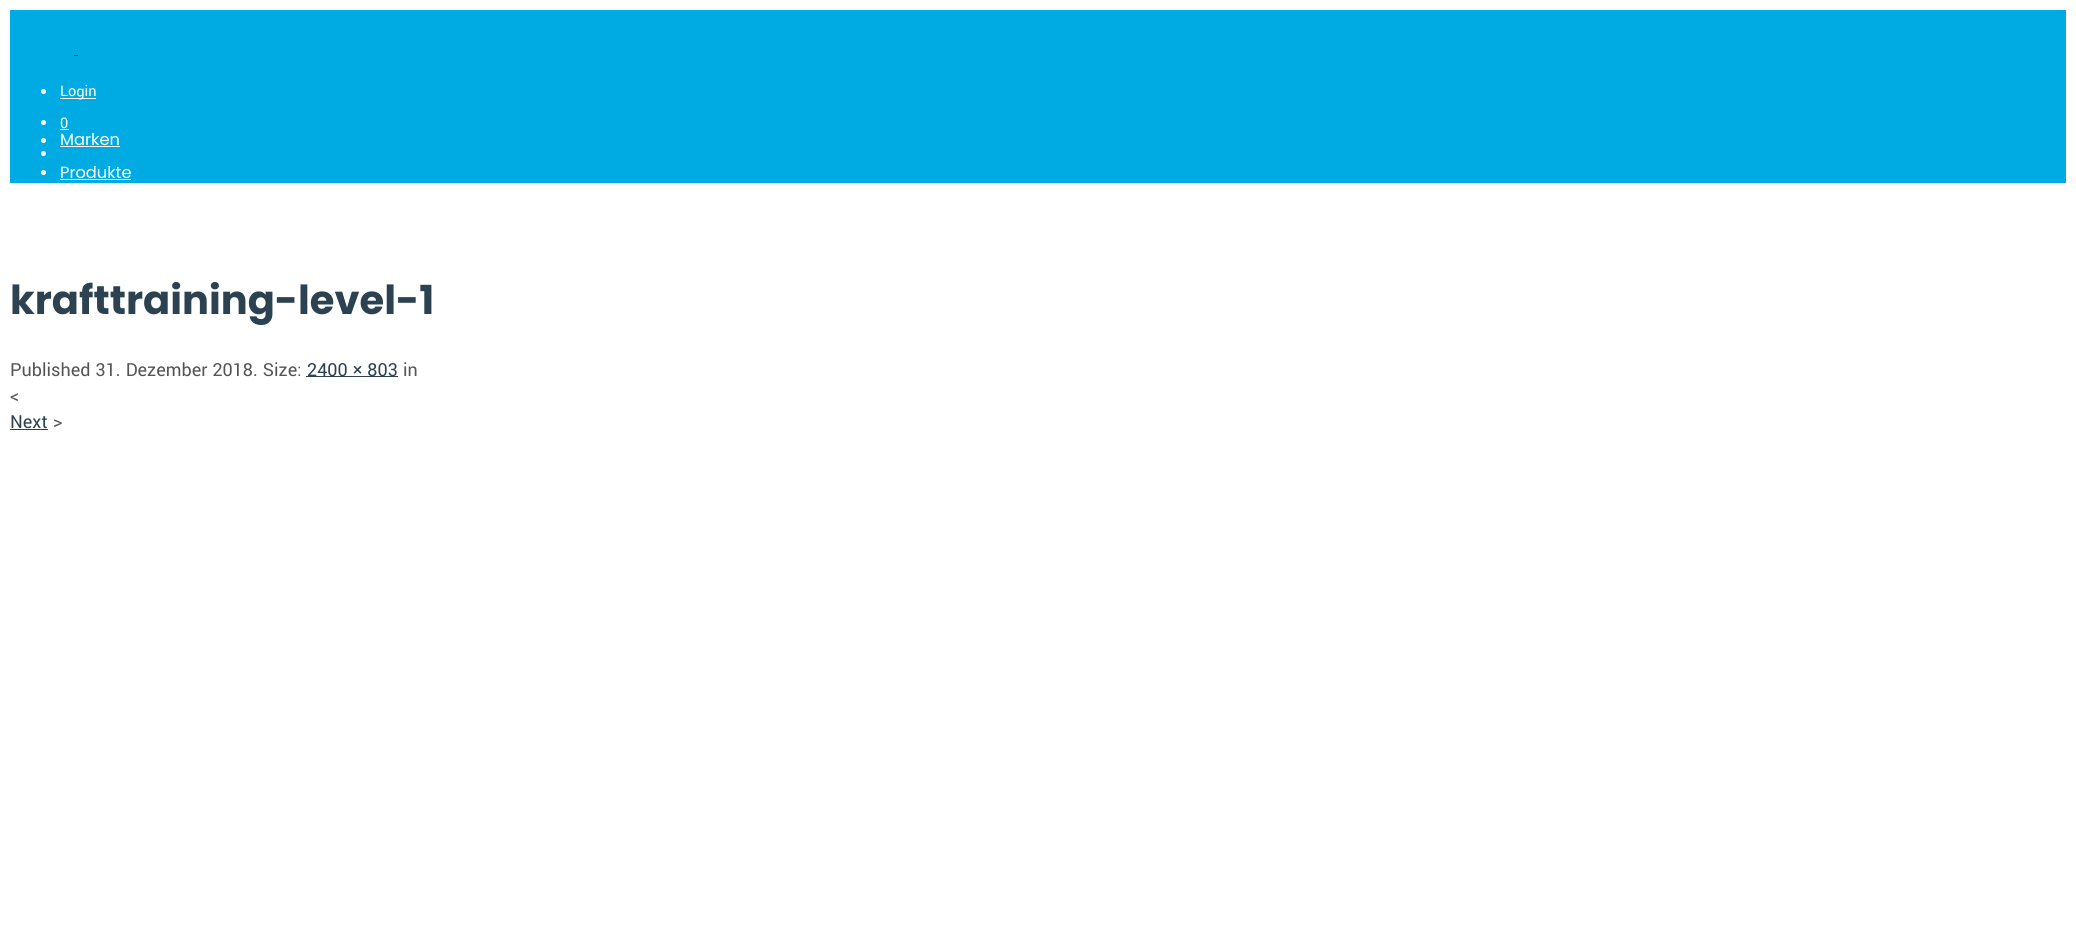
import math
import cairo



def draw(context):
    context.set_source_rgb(1, 1, 1)
    context.paint()
    context.set_source_rgb(0, 170 / 255, 226 / 255)
    context.rectangle(10, 10, 2056, 173)
    context.fill()
    context.set_source_rgb(44 / 255, 66 / 255, 81 / 255)
    context.rectangle(74, 55, 4, 1)
    context.fill()
    context.set_source_rgb(1, 1, 1)
    context.arc(43.5, 91.5, 2.5, 0, 2 * math.pi)
    context.fill()
    context.rectangle(60, 98, 36, 1)
    context.fill()
    context.arc(43.5, 122.5, 2.5, 0, 2 * math.pi)
    context.fill()
    context.rectangle(60, 129, 9, 1)
    context.fill()
    context.arc(43.5, 153.5, 2.5, 0, 2 * math.pi)
    context.fill()
    context.arc(43.5, 140.5, 2.5, 0, 2 * math.pi)
    context.fill()
    context.rectangle(60, 146, 60, 1)
    context.fill()
    context.arc(43.5, 172.5, 2.5, 0, 2 * math.pi)
    context.fill()
    context.rectangle(60, 179, 71, 1)
    context.fill()
    context.set_source_rgb(44 / 255, 66 / 255, 81 / 255)
    context.rectangle(306, 376, 92, 1)
    context.fill()
    context.rectangle(10, 429, 38, 1)
    context.fill()
    context.select_font_face("Yantramanav")
    context.set_font_size(16.25)
    context.set_source_rgb(1, 1, 1)
    context.move_to(60, 96)
    context.show_text("Login")
    context.move_to(60, 128)
    context.show_text("0")
    context.select_font_face("Poppins")
    context.move_to(60, 145)
    context.show_text("Marken")
    context.move_to(60, 178)
    context.show_text("Produkte")
    context.select_font_face("Poppins", cairo.FontSlant.NORMAL, cairo.FontWeight.BOLD)
    context.set_font_size(40)
    context.set_source_rgb(44 / 255, 66 / 255, 81 / 255)
    context.move_to(10, 314)
    context.show_text("krafttraining-level-1")
    context.select_font_face("Yantramanav")
    context.set_font_size(20)
    context.set_source_rgb(84 / 255, 84 / 255, 84 / 255)
    context.move_to(10, 376)
    context.show_text("Published 31. Dezember 2018. Size:")
    context.set_source_rgb(44 / 255, 66 / 255, 81 / 255)
    context.move_to(307, 376)
    context.show_text("2400 × 803")
    context.set_source_rgb(84 / 255, 84 / 255, 84 / 255)
    context.move_to(403, 376)
    context.show_text("in")
    context.move_to(10, 402)
    context.show_text("<")
    context.set_source_rgb(44 / 255, 66 / 255, 81 / 255)
    context.move_to(10, 428)
    context.show_text("Next")
    context.set_source_rgb(84 / 255, 84 / 255, 84 / 255)
    context.move_to(53, 428)
    context.show_text(">")


surface = cairo.ImageSurface(cairo.Format.RGB24, 2076, 946)
context = cairo.Context(surface)
options = cairo.FontOptions()
options.set_hint_metrics(cairo.HintMetrics.OFF)
options.set_hint_style(cairo.HintStyle.NONE)
context.set_font_options(options)
context.set_miter_limit(4)
draw(context)
surface.write_to_png("out.png")
